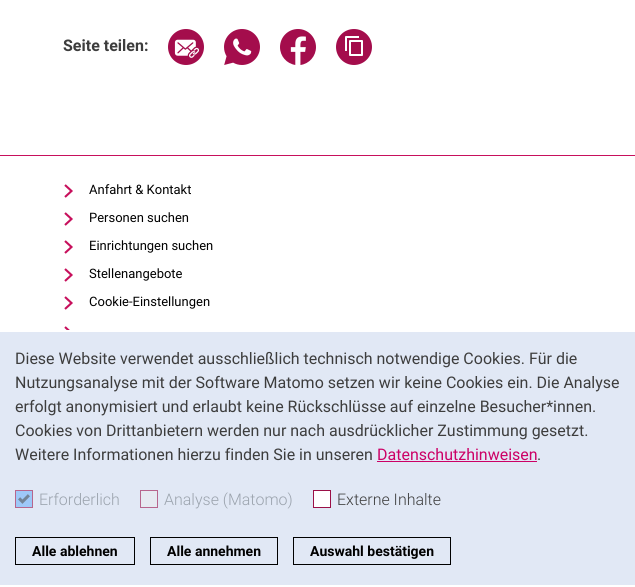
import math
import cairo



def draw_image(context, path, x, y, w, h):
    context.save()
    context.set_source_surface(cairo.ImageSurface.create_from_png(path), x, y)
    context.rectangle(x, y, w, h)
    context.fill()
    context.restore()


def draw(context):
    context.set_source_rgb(1, 1, 1)
    context.paint()
    draw_image(context, "images/1.png", 168, 29, 36, 36)
    draw_image(context, "images/2.png", 224, 29, 36, 36)
    draw_image(context, "images/3.png", 280, 29, 36, 36)
    draw_image(context, "images/4.png", 336, 29, 36, 36)
    context.set_source_rgb(199 / 255, 16 / 255, 92 / 255)
    context.rectangle(0, 155, 635, 1)
    context.fill()
    context.new_path()
    context.move_to(65, 197)
    context.line_to(71.5, 191)
    context.line_to(65, 185)
    context.set_line_width(2.1)
    context.stroke()
    context.new_path()
    context.move_to(65, 225)
    context.line_to(71.5, 219)
    context.line_to(65, 213)
    context.stroke()
    context.new_path()
    context.move_to(65, 253)
    context.line_to(71.5, 247)
    context.line_to(65, 241)
    context.stroke()
    context.new_path()
    context.move_to(65, 281)
    context.line_to(71.5, 275)
    context.line_to(65, 269)
    context.stroke()
    context.new_path()
    context.move_to(65, 309)
    context.line_to(71.5, 303)
    context.line_to(65, 297)
    context.move_to(65, 339)
    context.line_to(71.5, 333)
    context.line_to(65, 327)
    context.stroke()
    context.set_source_rgb(225 / 255, 232 / 255, 245 / 255)
    context.rectangle(0, 332, 635, 253)
    context.fill()
    context.set_source_rgb(1, 1, 1)
    context.rectangle(66, 330, 6, 2)
    context.fill()
    context.set_source_rgb(204 / 255, 0, 102 / 255)
    context.rectangle(377, 461, 160, 1)
    context.fill()
    context.set_source_rgb(158 / 255, 200 / 255, 248 / 255)
    context.rectangle(15.5, 490.5, 17, 17)
    context.fill_preserve()
    context.set_source_rgb(183 / 255, 102 / 255, 141 / 255)
    context.set_line_width(1)
    context.stroke()
    draw_image(context, "images/5.png", 18, 494, 12, 10)
    context.set_source_rgb(230 / 255, 234 / 255, 241 / 255)
    context.rectangle(140.5, 490.5, 17, 17)
    context.fill_preserve()
    context.set_source_rgb(183 / 255, 102 / 255, 141 / 255)
    context.stroke()
    context.set_source_rgb(1, 1, 1)
    context.rectangle(313.5, 490.5, 17, 17)
    context.fill_preserve()
    context.set_source_rgb(155 / 255, 16 / 255, 71 / 255)
    context.stroke()
    context.rectangle(15.5, 537.5, 119, 27)
    context.set_source_rgb(0, 0, 0)
    context.stroke()
    context.rectangle(150.5, 537.5, 127, 27)
    context.stroke()
    context.rectangle(293.5, 537.5, 157, 27)
    context.stroke()
    context.select_font_face("Roboto", cairo.FontSlant.NORMAL, cairo.FontWeight.BOLD)
    context.set_font_size(16)
    context.set_source_rgb(61 / 255, 61 / 255, 61 / 255)
    context.move_to(63, 51)
    context.show_text("Seite teilen:")
    context.select_font_face("Roboto")
    context.set_font_size(13)
    context.set_source_rgb(0, 0, 0)
    context.move_to(89, 194)
    context.show_text("Anfahrt & Kontakt")
    context.move_to(89, 222)
    context.show_text("Personen suchen")
    context.move_to(89, 250)
    context.show_text("Einrichtungen suchen")
    context.move_to(89, 278)
    context.show_text("Stellenangebote")
    context.move_to(89, 306)
    context.show_text("Cookie-Einstellungen")
    context.set_font_size(16)
    context.set_source_rgb(61 / 255, 61 / 255, 61 / 255)
    context.move_to(15, 364)
    context.show_text("Diese Website verwendet ausschließlich technisch notwendige Cookies. Für die")
    context.move_to(15, 388)
    context.show_text("Nutzungsanalyse mit der Software Matomo setzen wir keine Cookies ein. Die Analyse")
    context.move_to(15, 412)
    context.show_text("erfolgt anonymisiert und erlaubt keine Rückschlüsse auf einzelne Besucher*innen.")
    context.move_to(15, 436)
    context.show_text("Cookies von Drittanbietern werden nur nach ausdrücklicher Zustimmung gesetzt.")
    context.move_to(15, 460)
    context.show_text("Weitere Informationen hierzu finden Sie in unseren")
    context.set_source_rgb(204 / 255, 0, 102 / 255)
    context.move_to(377, 460)
    context.show_text("Datenschutzhinweisen")
    context.set_source_rgb(61 / 255, 61 / 255, 61 / 255)
    context.move_to(537, 460)
    context.show_text(".")
    context.select_font_face("Roboto Light")
    context.set_source_rgb(155 / 255, 163 / 255, 173 / 255)
    context.move_to(39, 505)
    context.show_text("Erforderlich")
    context.move_to(164, 505)
    context.show_text("Analyse (Matomo)")
    context.set_source_rgb(61 / 255, 61 / 255, 61 / 255)
    context.move_to(337, 505)
    context.show_text("Externe Inhalte")
    context.select_font_face("Roboto", cairo.FontSlant.NORMAL, cairo.FontWeight.BOLD)
    context.set_font_size(14)
    context.set_source_rgb(0, 0, 0)
    context.move_to(32, 556)
    context.show_text("Alle ablehnen")
    context.move_to(167, 556)
    context.show_text("Alle annehmen")
    context.move_to(310, 556)
    context.show_text("Auswahl bestätigen")


surface = cairo.ImageSurface(cairo.Format.RGB24, 635, 587)
context = cairo.Context(surface)
options = cairo.FontOptions()
options.set_hint_metrics(cairo.HintMetrics.OFF)
options.set_hint_style(cairo.HintStyle.NONE)
context.set_font_options(options)
context.set_miter_limit(4)
draw(context)
surface.write_to_png("out.png")
